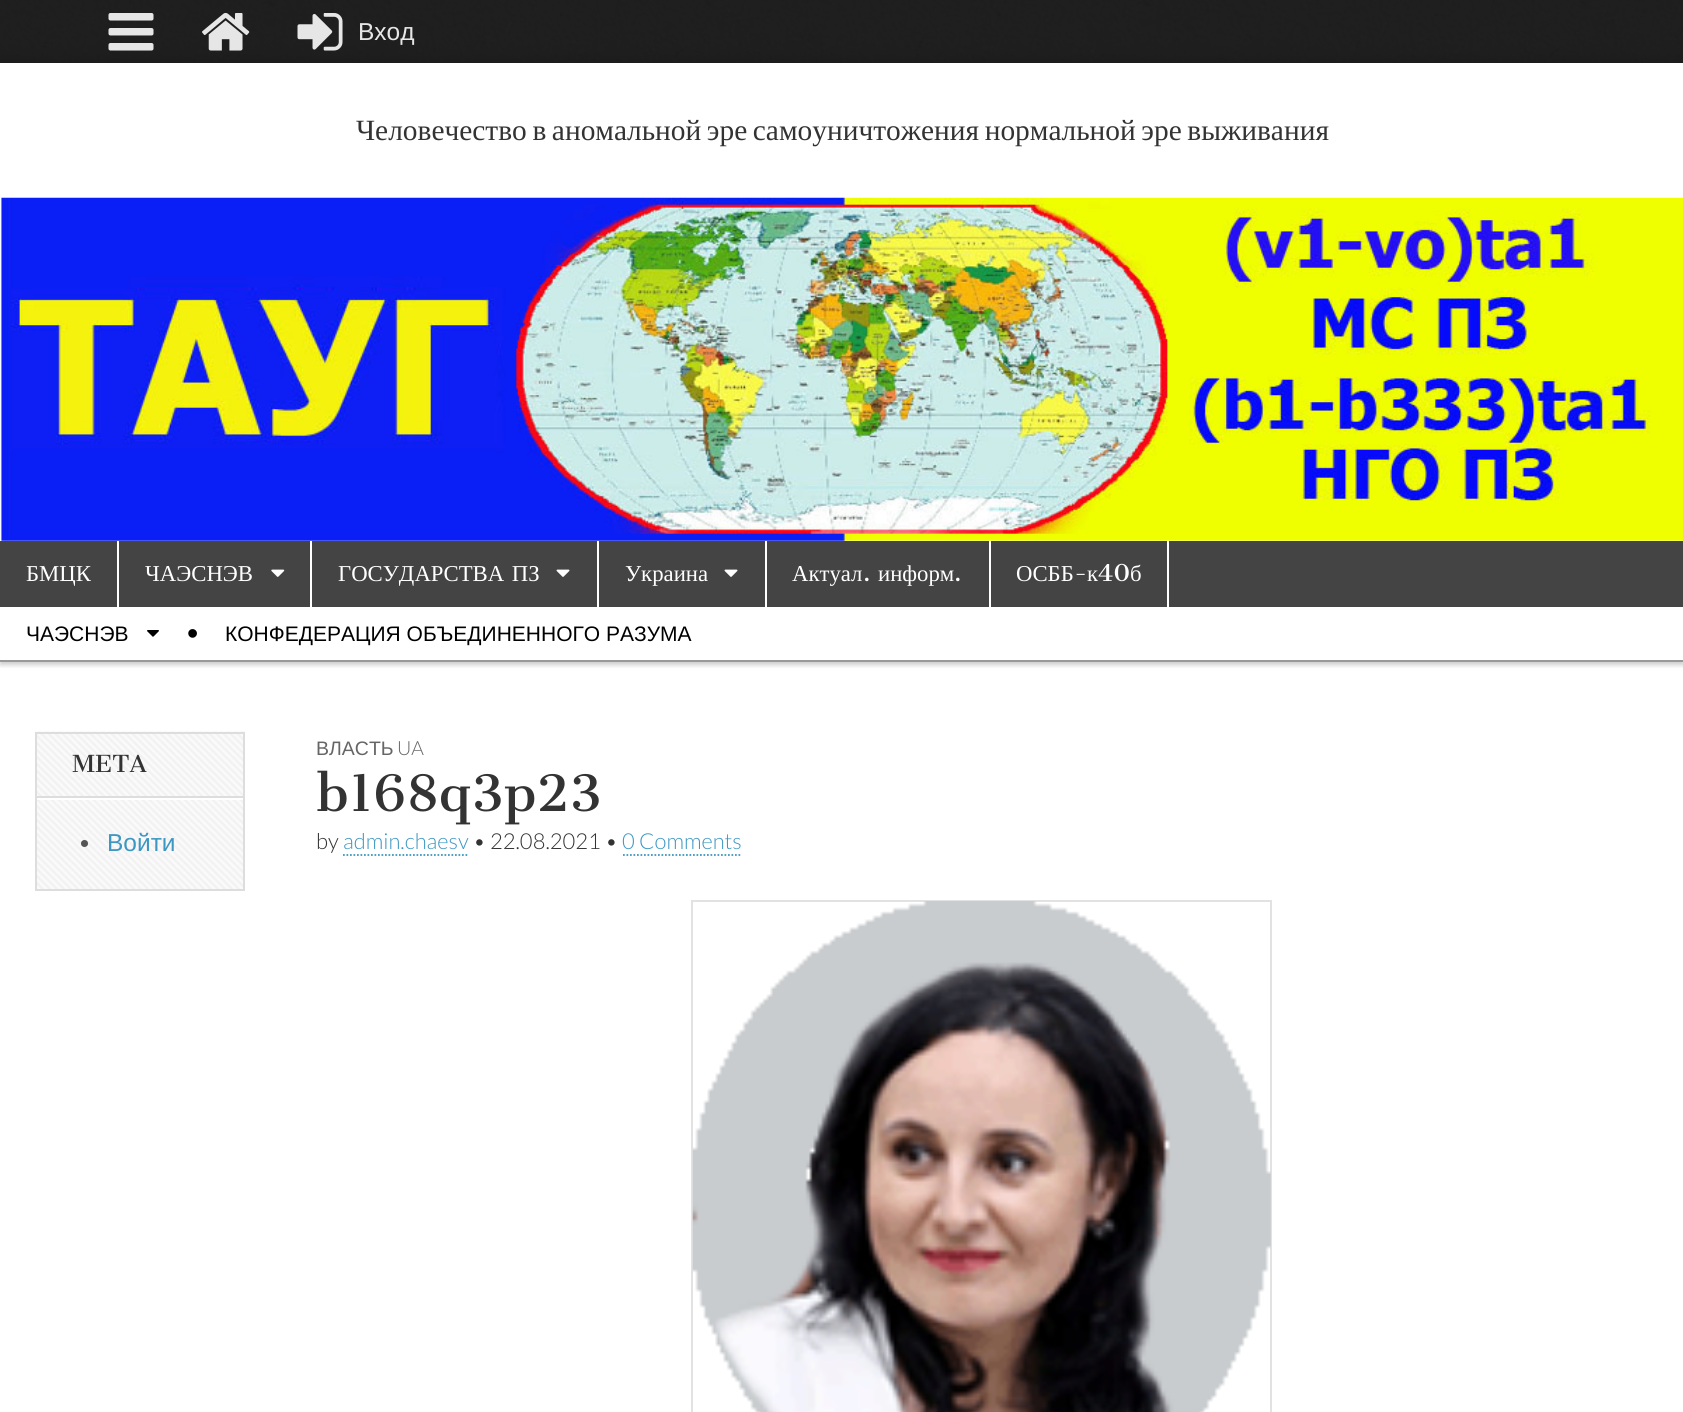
import math
import cairo



def draw_spaced(context, x, y, s, letter, word):
    context.move_to(x, y)
    for ch in s:
        context.show_text(ch)
        context.rel_move_to(letter + word * (ch == ' '), 0)


def rounded_rect(context, x, y, w, h, r):
    context.new_sub_path()
    for i, (u, v) in enumerate([(x + w - r, y + h - r), (x + r, y + h - r), (x + r, y + r), (x + w - r, y + r)]):
        context.arc(u, v, r, i * math.pi / 2, (i + 1) * math.pi / 2)
    context.close_path()


def draw_shadow(context, x, y, w, h, r, blur, alpha):
    context.push_group_with_content(cairo.Content.ALPHA)
    context.set_operator(cairo.Operator.SOURCE)
    for i in range(15, -16, -2):
        e = blur * i / 6
        if min(w, h) + 2 * e > 0:
            context.set_source_rgba(0, 0, 0, alpha * math.erfc((i - 1) / 8.5) / 2)
            rounded_rect(context, x - e, y - e, w + 2 * e, h + 2 * e, max(0, min(r + e + blur * .6, min(w, h) / 2 + e)))
            context.fill()
    context.mask(context.pop_group())


def draw_image(context, path, x, y, w, h):
    context.save()
    context.set_source_surface(cairo.ImageSurface.create_from_png(path), x, y)
    context.rectangle(x, y, w, h)
    context.fill()
    context.restore()


def draw(context):
    context.set_source_rgb(1, 1, 1)
    context.paint()
    draw_image(context, "images/1.png", 0, 0, 1683, 63)
    context.set_source_rgb(0, 0, 0)
    draw_shadow(context, 0, 63, 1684, 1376, 0, 9, 0.2)
    context.set_source_rgba(0, 0, 0, 0.85)
    context.rectangle(0, 0, 1683, 63)
    context.fill()
    draw_image(context, "images/2.png", 108, 13, 46, 38)
    draw_image(context, "images/3.png", 202, 12, 48, 39)
    draw_image(context, "images/4.png", 297, 13, 46, 38)
    context.set_source_rgb(1, 1, 1)
    context.rectangle(0, 63, 1683, 1349)
    context.fill()
    draw_image(context, "images/5.png", 0, 197, 1683, 344)
    context.set_source_rgb(68 / 255, 68 / 255, 68 / 255)
    context.rectangle(0, 541, 1683, 66)
    context.fill()
    context.save()
    context.rectangle(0, 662, 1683, 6)
    context.clip()
    context.set_source_rgb(0, 0, 0)
    draw_shadow(context, 0, 611, 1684, 54, 0, 2.5, 0.2)
    context.restore()
    context.set_source_rgb(1, 1, 1)
    context.rectangle(117, 541, 2, 66)
    context.fill()
    context.rectangle(310, 541, 2, 66)
    context.fill()
    draw_image(context, "images/6.png", 271, 569, 14, 8)
    context.rectangle(597, 541, 2, 66)
    context.fill()
    draw_image(context, "images/7.png", 556, 569, 14, 8)
    context.rectangle(765, 541, 2, 66)
    context.fill()
    draw_image(context, "images/7.png", 724, 569, 14, 8)
    context.rectangle(989, 541, 2, 66)
    context.fill()
    context.rectangle(1167, 541, 2, 66)
    context.fill()
    context.set_source_rgb(153 / 255, 153 / 255, 153 / 255)
    context.rectangle(0, 660, 1683, 2)
    context.fill()
    draw_image(context, "images/8.png", 147, 630, 12, 7)
    draw_image(context, "images/9.png", 35, 731, 210, 158)
    context.rectangle(36, 733, 208, 157)
    context.set_source_rgb(221 / 255, 221 / 255, 221 / 255)
    context.stroke()
    context.set_source_rgb(1, 1, 1)
    context.rectangle(37, 798, 206, 2)
    context.fill()
    context.set_source_rgb(221 / 255, 221 / 255, 221 / 255)
    context.rectangle(37, 796, 206, 2)
    context.fill()
    context.set_source_rgb(85 / 255, 85 / 255, 85 / 255)
    context.arc(84.5, 843.5, 3.5, 0, 2 * math.pi)
    context.fill()
    context.new_path()
    context.move_to(343, 855)
    context.line_to(469, 855)
    context.set_source_rgb(61 / 255, 151 / 255, 194 / 255)
    context.set_line_width(1.8)
    context.set_dash([1.75, 1.75])
    context.stroke()
    context.new_path()
    context.move_to(623, 855)
    context.line_to(742, 855)
    context.stroke()
    context.rectangle(692, 901, 579, 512)
    context.set_source_rgb(226 / 255, 226 / 255, 226 / 255)
    context.set_line_width(2)
    context.set_dash([])
    context.stroke()
    draw_image(context, "images/10.png", 692, 901, 579, 511)
    context.select_font_face("Liberation Sans")
    context.set_font_size(24.5)
    context.set_source_rgb(230 / 255, 230 / 255, 230 / 255)
    context.move_to(358, 40)
    context.show_text("Вход")
    context.select_font_face("Liberation Serif")
    context.set_font_size(29.4)
    context.set_source_rgb(51 / 255, 51 / 255, 51 / 255)
    draw_spaced(context, 356, 140, "Человечество в аномальной эре самоуничтожения нормальной эре выживания", 0, -1.75)
    context.set_font_size(22.75)
    context.set_source_rgb(1, 1, 1)
    context.move_to(26, 581)
    context.show_text("БМЦК")
    context.move_to(145, 581)
    context.show_text("ЧАЭСНЭВ")
    draw_spaced(context, 338, 581, "ГОСУДАРСТВА ПЗ", 0, 2)
    context.move_to(625, 581)
    context.show_text("Украина")
    context.move_to(792, 581)
    context.show_text("Актуал")
    context.select_font_face("Cantata One")
    context.move_to(863, 581)
    context.show_text(".")
    context.select_font_face("Liberation Serif")
    context.move_to(878, 581)
    context.show_text("информ")
    context.select_font_face("Cantata One")
    context.move_to(954, 581)
    context.show_text(".")
    context.select_font_face("Liberation Serif")
    context.move_to(1016, 581)
    context.show_text("ОСББ")
    context.select_font_face("Cantata One")
    context.move_to(1074, 581)
    context.show_text("-")
    context.select_font_face("Liberation Serif")
    context.move_to(1087, 581)
    context.show_text("к")
    context.select_font_face("Cantata One")
    context.move_to(1098, 581)
    context.show_text("40")
    context.select_font_face("Liberation Serif")
    context.move_to(1130, 581)
    context.show_text("б")
    context.select_font_face("Liberation Sans")
    context.set_font_size(21)
    context.set_source_rgb(0, 0, 0)
    context.move_to(26, 641)
    context.show_text("ЧАЭСНЭВ")
    context.set_font_size(32)
    context.move_to(187, 644)
    context.show_text("•")
    context.set_font_size(21)
    context.move_to(225, 641)
    context.show_text("КОНФЕДЕРАЦИЯ ОБЪЕДИНЕННОГО РАЗУМА")
    context.select_font_face("Cantata One")
    context.set_font_size(23)
    context.set_source_rgb(51 / 255, 51 / 255, 51 / 255)
    context.move_to(72, 772)
    context.show_text("META")
    context.select_font_face("Liberation Sans")
    context.set_font_size(24.5)
    context.set_source_rgb(61 / 255, 151 / 255, 194 / 255)
    context.move_to(107, 851)
    context.show_text("Войти")
    context.set_font_size(19.5)
    context.set_source_rgb(102 / 255, 102 / 255, 102 / 255)
    context.move_to(316, 755)
    context.show_text("ВЛАСТЬ")
    context.select_font_face("Lato Light")
    context.move_to(397, 755)
    context.show_text("UA")
    context.select_font_face("Cantata One")
    context.set_font_size(49)
    context.set_source_rgb(51 / 255, 51 / 255, 51 / 255)
    context.move_to(316, 811)
    context.show_text("b168q3p23")
    context.select_font_face("Lato Light")
    context.set_font_size(22)
    context.move_to(316, 849)
    context.show_text("by")
    context.set_source_rgb(61 / 255, 151 / 255, 194 / 255)
    context.move_to(343, 849)
    context.show_text("admin.chaesv")
    context.set_source_rgb(51 / 255, 51 / 255, 51 / 255)
    context.move_to(473, 849)
    context.show_text("• 22.08.2021 •")
    context.set_source_rgb(61 / 255, 151 / 255, 194 / 255)
    context.move_to(622, 849)
    context.show_text("0 Comments")


surface = cairo.ImageSurface(cairo.Format.RGB24, 1683, 1412)
context = cairo.Context(surface)
options = cairo.FontOptions()
options.set_hint_metrics(cairo.HintMetrics.OFF)
options.set_hint_style(cairo.HintStyle.NONE)
context.set_font_options(options)
context.set_miter_limit(4)
draw(context)
surface.write_to_png("out.png")
